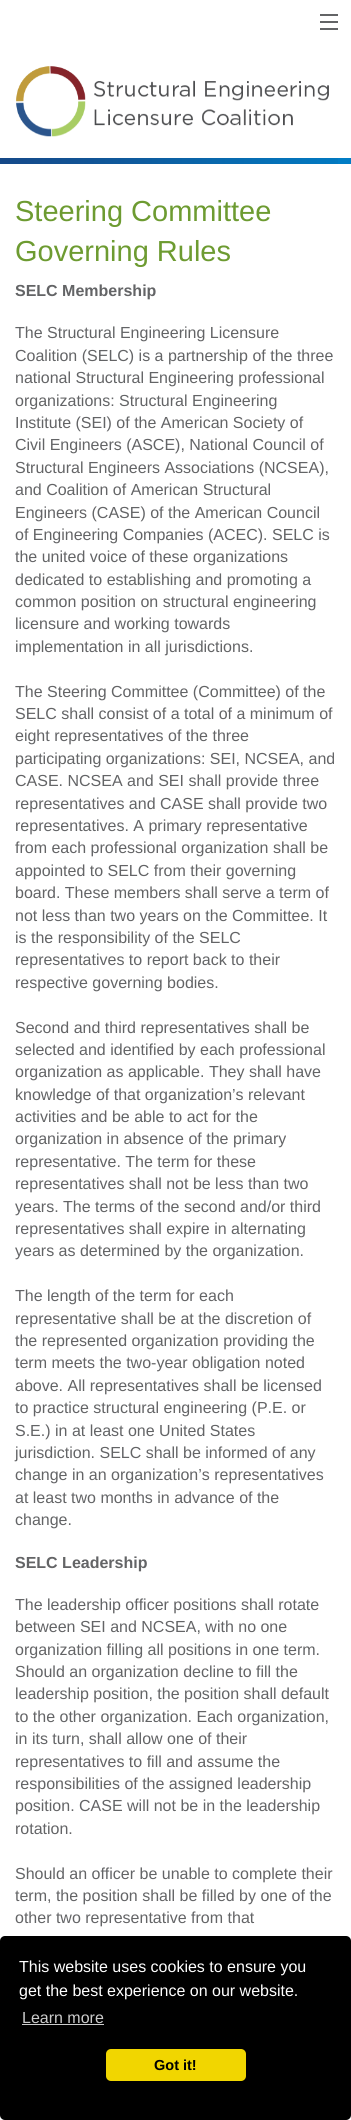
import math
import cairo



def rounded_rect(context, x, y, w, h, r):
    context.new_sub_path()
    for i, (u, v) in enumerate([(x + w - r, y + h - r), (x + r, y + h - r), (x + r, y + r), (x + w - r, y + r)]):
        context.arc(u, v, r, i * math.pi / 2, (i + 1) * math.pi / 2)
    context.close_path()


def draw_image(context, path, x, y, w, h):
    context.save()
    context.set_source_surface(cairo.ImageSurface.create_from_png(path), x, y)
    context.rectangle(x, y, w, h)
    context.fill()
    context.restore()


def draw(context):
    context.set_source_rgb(1, 1, 1)
    context.paint()
    context.set_source_rgb(99 / 255, 100 / 255, 102 / 255)
    context.rectangle(320, 28, 18, 2)
    context.fill()
    context.rectangle(320, 21, 18, 2)
    context.fill()
    context.rectangle(320, 14, 18, 2)
    context.fill()
    draw_image(context, "images/1.png", 16, 66, 313, 71)
    context.set_source_rgb(21 / 255, 72 / 255, 135 / 255)
    context.rectangle(0, 158, 10, 6)
    context.fill()
    context.set_source_rgb(1 / 255, 125 / 255, 197 / 255)
    context.rectangle(338, 158, 13, 6)
    context.fill()
    draw_image(context, "images/2.png", 10, 158, 328, 6)
    context.set_source_rgb(0, 0, 0)
    rounded_rect(context, 0, 1936, 351, 184, 5)
    context.fill()
    context.set_source_rgb(204 / 255, 204 / 255, 204 / 255)
    context.rectangle(22, 2024, 82, 1)
    context.fill()
    context.set_source_rgb(241 / 255, 214 / 255, 0)
    rounded_rect(context, 106, 2049, 140, 32, 5)
    context.fill()
    context.select_font_face("Liberation Sans")
    context.set_font_size(29)
    context.set_source_rgb(109 / 255, 155 / 255, 49 / 255)
    context.move_to(15, 221)
    context.show_text("Steering Committee")
    context.move_to(15, 261)
    context.show_text("Governing Rules")
    context.select_font_face("Liberation Sans", cairo.FontSlant.NORMAL, cairo.FontWeight.BOLD)
    context.set_font_size(16)
    context.set_source_rgb(99 / 255, 100 / 255, 102 / 255)
    context.move_to(15, 296)
    context.show_text("SELC Membership")
    context.select_font_face("Liberation Sans")
    context.move_to(15, 338)
    context.show_text("The Structural Engineering Licensure")
    context.move_to(15, 361)
    context.show_text("Coalition (SELC) is a partnership of the three")
    context.move_to(15, 383)
    context.show_text("national Structural Engineering professional")
    context.move_to(15, 406)
    context.show_text("organizations: Structural Engineering")
    context.move_to(15, 428)
    context.show_text("Institute (SEI) of the American Society of")
    context.move_to(15, 450)
    context.show_text("Civil Engineers (ASCE), National Council of")
    context.move_to(15, 473)
    context.show_text("Structural Engineers Associations (NCSEA),")
    context.move_to(15, 495)
    context.show_text("and Coalition of American Structural")
    context.move_to(15, 518)
    context.show_text("Engineers (CASE) of the American Council")
    context.move_to(15, 540)
    context.show_text("of Engineering Companies (ACEC). SELC is")
    context.move_to(15, 562)
    context.show_text("the united voice of these organizations")
    context.move_to(15, 585)
    context.show_text("dedicated to establishing and promoting a")
    context.move_to(15, 607)
    context.show_text("common position on structural engineering")
    context.move_to(15, 629)
    context.show_text("licensure and working towards")
    context.move_to(15, 652)
    context.show_text("implementation in all jurisdictions.")
    context.move_to(15, 697)
    context.show_text("The Steering Committee (Committee) of the")
    context.move_to(15, 719)
    context.show_text("SELC shall consist of a total of a minimum of")
    context.move_to(15, 741)
    context.show_text("eight representatives of the three")
    context.move_to(15, 764)
    context.show_text("participating organizations: SEI, NCSEA, and")
    context.move_to(15, 786)
    context.show_text("CASE. NCSEA and SEI shall provide three")
    context.move_to(15, 809)
    context.show_text("representatives and CASE shall provide two")
    context.move_to(15, 831)
    context.show_text("representatives. A primary representative")
    context.move_to(15, 853)
    context.show_text("from each professional organization shall be")
    context.move_to(15, 876)
    context.show_text("appointed to SELC from their governing")
    context.move_to(15, 898)
    context.show_text("board. These members shall serve a term of")
    context.move_to(15, 921)
    context.show_text("not less than two years on the Committee. It")
    context.move_to(15, 943)
    context.show_text("is the responsibility of the SELC")
    context.move_to(15, 965)
    context.show_text("representatives to report back to their")
    context.move_to(15, 988)
    context.show_text("respective governing bodies.")
    context.move_to(15, 1033)
    context.show_text("Second and third representatives shall be")
    context.move_to(15, 1055)
    context.show_text("selected and identified by each professional")
    context.move_to(15, 1077)
    context.show_text("organization as applicable. They shall have")
    context.move_to(15, 1100)
    context.show_text("knowledge of that organization’s relevant")
    context.move_to(15, 1122)
    context.show_text("activities and be able to act for the")
    context.move_to(15, 1144)
    context.show_text("organization in absence of the primary")
    context.move_to(15, 1167)
    context.show_text("representative. The term for these")
    context.move_to(15, 1189)
    context.show_text("representatives shall not be less than two")
    context.move_to(15, 1212)
    context.show_text("years. The terms of the second and/or third")
    context.move_to(15, 1234)
    context.show_text("representatives shall expire in alternating")
    context.move_to(15, 1256)
    context.show_text("years as determined by the organization.")
    context.move_to(15, 1301)
    context.show_text("The length of the term for each")
    context.move_to(15, 1324)
    context.show_text("representative shall be at the discretion of")
    context.move_to(15, 1346)
    context.show_text("the represented organization providing the")
    context.move_to(15, 1368)
    context.show_text("term meets the two-year obligation noted")
    context.move_to(15, 1391)
    context.show_text("above. All representatives shall be licensed")
    context.move_to(15, 1413)
    context.show_text("to practice structural engineering (P.E. or")
    context.move_to(15, 1436)
    context.show_text("S.E.) in at least one United States")
    context.move_to(15, 1458)
    context.show_text("jurisdiction. SELC shall be informed of any")
    context.move_to(15, 1480)
    context.show_text("change in an organization’s representatives")
    context.move_to(15, 1503)
    context.show_text("at least two months in advance of the")
    context.move_to(15, 1525)
    context.show_text("change.")
    context.select_font_face("Liberation Sans", cairo.FontSlant.NORMAL, cairo.FontWeight.BOLD)
    context.move_to(15, 1568)
    context.show_text("SELC Leadership")
    context.select_font_face("Liberation Sans")
    context.move_to(15, 1610)
    context.show_text("The leadership officer positions shall rotate")
    context.move_to(15, 1632)
    context.show_text("between SEI and NCSEA, with no one")
    context.move_to(15, 1655)
    context.show_text("organization filling all positions in one term.")
    context.move_to(15, 1677)
    context.show_text("Should an organization decline to fill the")
    context.move_to(15, 1699)
    context.show_text("leadership position, the position shall default")
    context.move_to(15, 1722)
    context.show_text("to the other organization. Each organization,")
    context.move_to(15, 1744)
    context.show_text("in its turn, shall allow one of their")
    context.move_to(15, 1767)
    context.show_text("representatives to fill and assume the")
    context.move_to(15, 1789)
    context.show_text("responsibilities of the assigned leadership")
    context.move_to(15, 1811)
    context.show_text("position. CASE will not be in the leadership")
    context.move_to(15, 1834)
    context.show_text("rotation.")
    context.move_to(15, 1879)
    context.show_text("Should an officer be unable to complete their")
    context.move_to(15, 1901)
    context.show_text("term, the position shall be filled by one of the")
    context.move_to(15, 1923)
    context.show_text("other two representative from that")
    context.set_source_rgb(1, 1, 1)
    context.move_to(19, 1972)
    context.show_text("This website uses cookies to ensure you")
    context.move_to(19, 1996)
    context.show_text("get the best experience on our website.")
    context.set_source_rgb(204 / 255, 204 / 255, 204 / 255)
    context.move_to(22, 2023)
    context.show_text("Learn more")
    context.select_font_face("Liberation Sans", cairo.FontSlant.NORMAL, cairo.FontWeight.BOLD)
    context.set_font_size(14.5)
    context.set_source_rgb(0, 0, 0)
    context.move_to(154, 2070)
    context.show_text("Got it!")


surface = cairo.ImageSurface(cairo.Format.RGB24, 351, 2120)
context = cairo.Context(surface)
options = cairo.FontOptions()
options.set_hint_metrics(cairo.HintMetrics.OFF)
options.set_hint_style(cairo.HintStyle.NONE)
context.set_font_options(options)
context.set_miter_limit(4)
draw(context)
surface.write_to_png("out.png")
